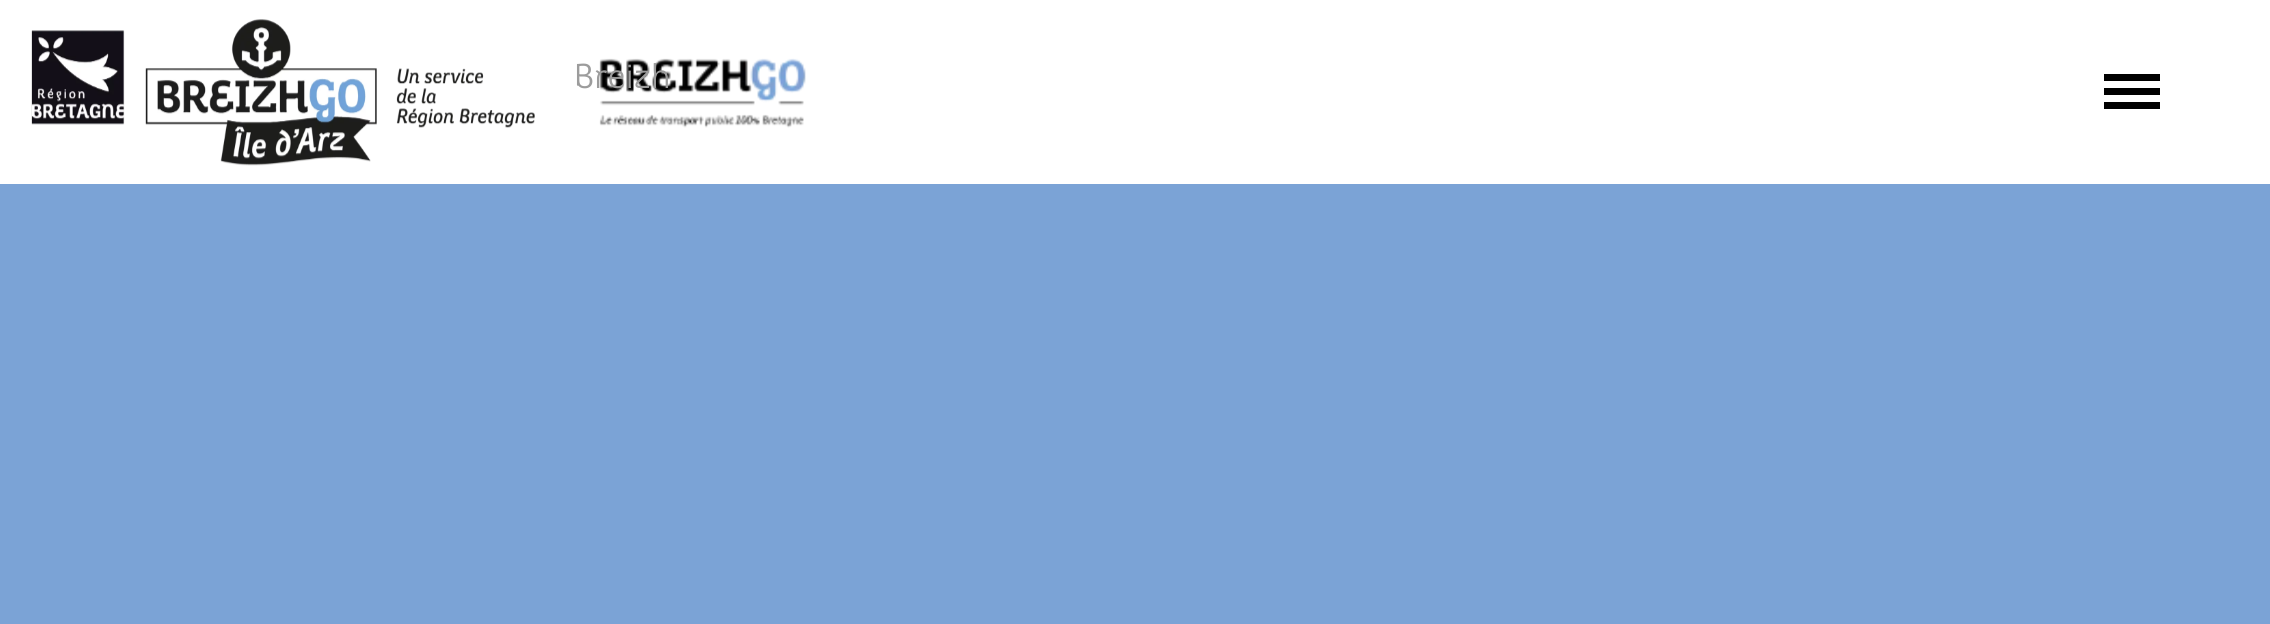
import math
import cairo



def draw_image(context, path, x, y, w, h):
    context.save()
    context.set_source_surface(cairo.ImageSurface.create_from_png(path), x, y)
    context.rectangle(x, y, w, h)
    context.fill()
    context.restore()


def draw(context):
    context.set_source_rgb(1, 1, 1)
    context.paint()
    draw_image(context, "images/1.png", 31, 19, 504, 147)
    draw_image(context, "images/2.png", 599, 58, 207, 70)
    context.set_source_rgb(0, 0, 0)
    context.rectangle(2104, 74, 56, 7)
    context.fill()
    context.rectangle(2104, 88, 56, 7)
    context.fill()
    context.rectangle(2104, 102, 56, 7)
    context.fill()
    context.set_source_rgb(123 / 255, 163 / 255, 214 / 255)
    context.rectangle(0, 184, 2270, 440)
    context.fill()
    context.select_font_face("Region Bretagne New")
    context.set_font_size(35)
    context.set_source_rgb(156 / 255, 156 / 255, 156 / 255)
    context.move_to(574, 88)
    context.show_text("Breizh")


surface = cairo.ImageSurface(cairo.Format.RGB24, 2270, 624)
context = cairo.Context(surface)
options = cairo.FontOptions()
options.set_hint_metrics(cairo.HintMetrics.OFF)
options.set_hint_style(cairo.HintStyle.NONE)
context.set_font_options(options)
context.set_miter_limit(4)
draw(context)
surface.write_to_png("out.png")
